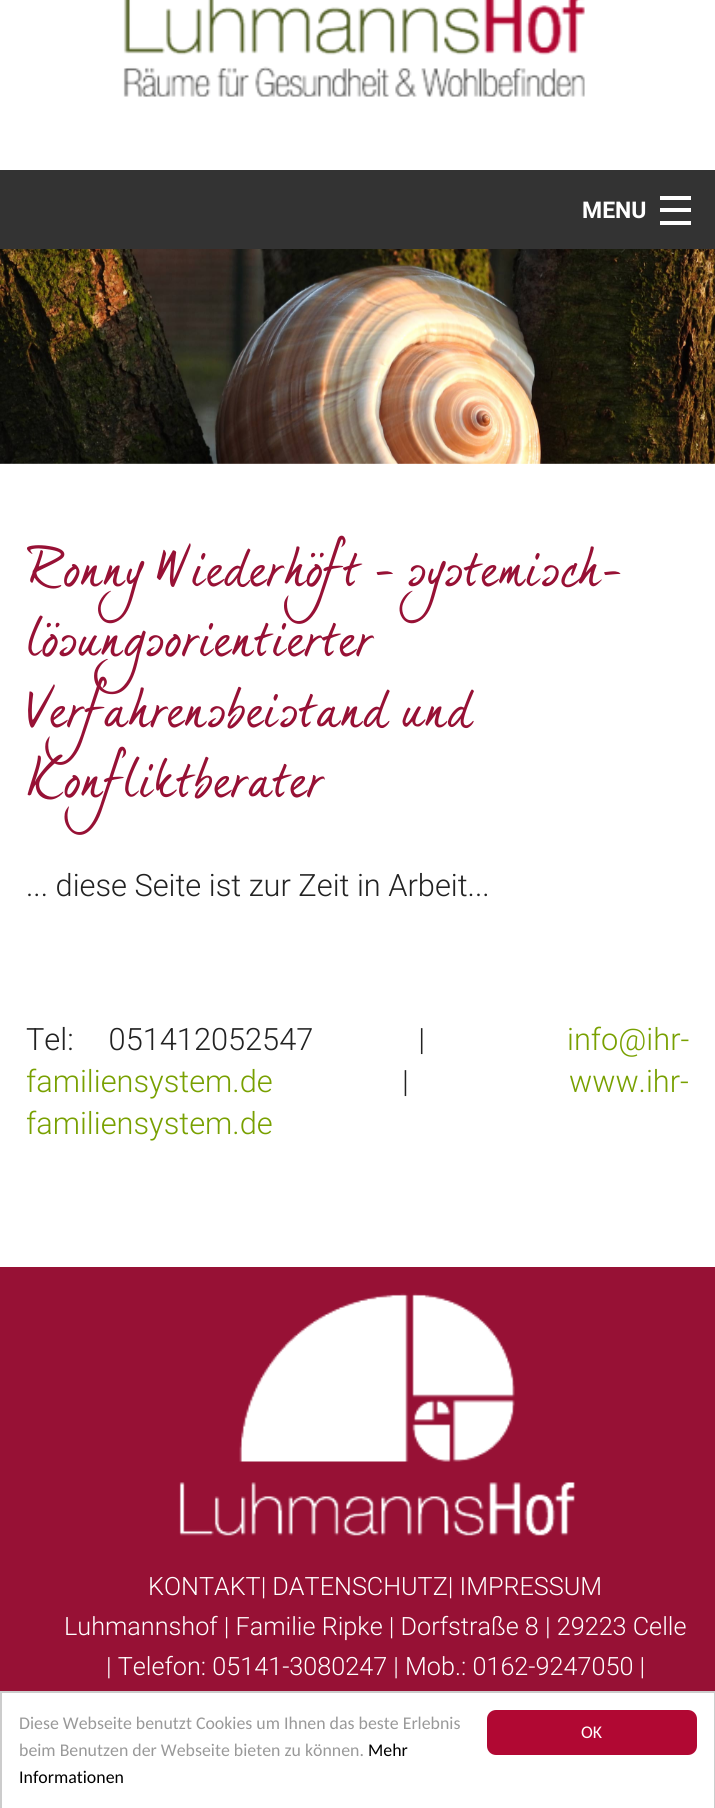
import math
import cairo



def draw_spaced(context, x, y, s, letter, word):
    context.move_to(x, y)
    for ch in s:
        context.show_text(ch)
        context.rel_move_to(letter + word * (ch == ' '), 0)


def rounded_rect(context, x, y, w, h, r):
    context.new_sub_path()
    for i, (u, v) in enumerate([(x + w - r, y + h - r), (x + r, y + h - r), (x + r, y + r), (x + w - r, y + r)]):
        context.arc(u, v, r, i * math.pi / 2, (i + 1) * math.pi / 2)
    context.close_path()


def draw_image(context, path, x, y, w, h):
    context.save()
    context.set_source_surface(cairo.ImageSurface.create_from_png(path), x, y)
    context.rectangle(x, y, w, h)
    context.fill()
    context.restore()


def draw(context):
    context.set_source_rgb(1, 1, 1)
    context.paint()
    draw_image(context, "images/1.png", 123, 0, 462, 97)
    context.set_source_rgb(51 / 255, 51 / 255, 51 / 255)
    context.rectangle(0, 170, 715, 79)
    context.fill()
    context.set_source_rgb(1, 1, 1)
    context.rectangle(660, 221, 31, 4)
    context.fill()
    context.rectangle(660, 208, 31, 4)
    context.fill()
    context.rectangle(660, 196, 31, 4)
    context.fill()
    draw_image(context, "images/2.png", 0, 249, 715, 215)
    context.set_source_rgb(151 / 255, 17 / 255, 53 / 255)
    context.rectangle(0, 1267, 715, 424)
    context.fill()
    draw_image(context, "images/3.png", 179, 1293, 396, 243)
    context.rectangle(1, 1692, 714, 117)
    context.set_source_rgb(204 / 255, 204 / 255, 204 / 255)
    context.stroke()
    context.set_source_rgb(177 / 255, 8 / 255, 51 / 255)
    rounded_rect(context, 487, 1710, 210, 45, 9)
    context.fill()
    context.select_font_face("Roboto", cairo.FontSlant.NORMAL, cairo.FontWeight.BOLD)
    context.set_font_size(23)
    context.set_source_rgb(1, 1, 1)
    context.move_to(582, 218)
    context.show_text("MENU")
    context.select_font_face("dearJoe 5")
    context.set_font_size(50.4)
    context.set_source_rgb(151 / 255, 17 / 255, 53 / 255)
    context.move_to(26, 585)
    context.show_text("Ronny Wiederhöft - systemisch-")
    context.move_to(26, 655)
    context.show_text("lösungsorientierter")
    context.move_to(26, 726)
    context.show_text("Verfahrensbeistand und")
    context.move_to(26, 796)
    context.show_text("Konfliktberater")
    context.select_font_face("Roboto Light")
    context.set_font_size(30.75)
    context.set_source_rgb(34 / 255, 34 / 255, 34 / 255)
    context.move_to(26, 896)
    context.show_text("... diese Seite ist zur Zeit in Arbeit...")
    draw_spaced(context, 26, 1050, "Tel: 051412052547   |", 0, 27.5)
    context.set_source_rgb(120 / 255, 160 / 255, 0)
    context.move_to(567, 1050)
    context.show_text("info@ihr-")
    context.move_to(26, 1092)
    context.show_text("familiensystem.de")
    context.set_source_rgb(34 / 255, 34 / 255, 34 / 255)
    context.move_to(402, 1092)
    context.show_text("|")
    context.set_source_rgb(120 / 255, 160 / 255, 0)
    context.move_to(569, 1092)
    context.show_text("www.ihr-")
    context.move_to(26, 1134)
    context.show_text("familiensystem.de")
    context.set_font_size(25.2)
    context.set_source_rgb(1, 1, 1)
    context.move_to(148, 1595)
    context.show_text("KONTAKT| DATENSCHUTZ| IMPRESSUM")
    context.move_to(64, 1635)
    context.show_text("Luhmannshof | Familie Ripke | Dorfstraße 8 | 29223 Celle")
    context.move_to(106, 1675)
    context.show_text("| Telefon: 05141-3080247 | Mob.: 0162-9247050 |")
    context.select_font_face("Carlito")
    context.set_font_size(17.85)
    context.set_source_rgb(153 / 255, 153 / 255, 153 / 255)
    context.move_to(19, 1729)
    context.show_text("Diese Webseite benutzt Cookies um Ihnen das beste Erlebnis")
    context.move_to(19, 1756)
    context.show_text("beim Benutzen der Webseite bieten zu können.")
    context.set_source_rgb(0, 0, 0)
    context.move_to(368, 1756)
    context.show_text("Mehr")
    context.move_to(19, 1783)
    context.show_text("Informationen")
    context.set_source_rgb(1, 1, 1)
    context.move_to(581, 1738)
    context.show_text("OK")


surface = cairo.ImageSurface(cairo.Format.RGB24, 715, 1808)
context = cairo.Context(surface)
options = cairo.FontOptions()
options.set_hint_metrics(cairo.HintMetrics.OFF)
options.set_hint_style(cairo.HintStyle.NONE)
context.set_font_options(options)
context.set_miter_limit(4)
draw(context)
surface.write_to_png("out.png")
